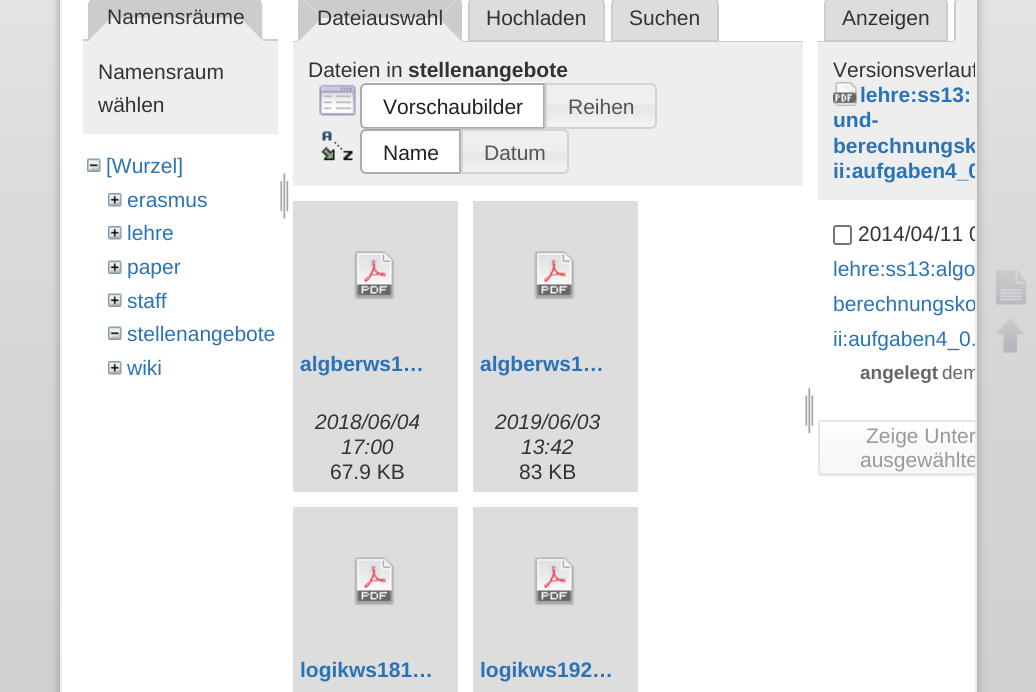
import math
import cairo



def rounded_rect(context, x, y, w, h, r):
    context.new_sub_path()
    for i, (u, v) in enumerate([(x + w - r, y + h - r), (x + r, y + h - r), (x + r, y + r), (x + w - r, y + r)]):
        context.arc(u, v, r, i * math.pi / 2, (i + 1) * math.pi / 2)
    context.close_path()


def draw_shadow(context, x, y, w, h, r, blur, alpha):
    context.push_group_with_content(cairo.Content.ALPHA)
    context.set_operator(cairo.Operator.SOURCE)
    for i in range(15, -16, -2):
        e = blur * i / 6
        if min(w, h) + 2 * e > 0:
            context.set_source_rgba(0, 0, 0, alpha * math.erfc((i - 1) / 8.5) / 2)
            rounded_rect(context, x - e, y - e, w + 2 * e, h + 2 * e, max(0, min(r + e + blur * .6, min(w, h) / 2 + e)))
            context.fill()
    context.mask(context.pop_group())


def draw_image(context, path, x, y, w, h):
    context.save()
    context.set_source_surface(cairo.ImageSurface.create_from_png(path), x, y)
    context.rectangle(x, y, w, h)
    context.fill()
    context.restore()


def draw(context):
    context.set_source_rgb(1, 1, 1)
    context.paint()
    gradient = cairo.LinearGradient(0, 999, 0, -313)
    gradient.add_color_stop_rgba(0, 201 / 255, 201 / 255, 201 / 255, 1)
    gradient.add_color_stop_rgba(0.07, 202 / 255, 202 / 255, 202 / 255, 1)
    gradient.add_color_stop_rgba(0.24, 208 / 255, 208 / 255, 208 / 255, 1)
    gradient.add_color_stop_rgba(0.49, 214 / 255, 214 / 255, 214 / 255, 1)
    gradient.add_color_stop_rgba(0.67, 222 / 255, 222 / 255, 222 / 255, 1)
    gradient.add_color_stop_rgba(1, 242 / 255, 242 / 255, 242 / 255, 1)
    context.set_source(gradient)
    context.rectangle(0, 0, 1036, 692)
    context.fill()
    context.set_source_rgb(153 / 255, 153 / 255, 153 / 255)
    draw_shadow(context, 60, -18, 917, 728, 3, 5, 1)
    context.set_source_rgb(1, 1, 1)
    context.rectangle(61, -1, 915, 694)
    context.fill_preserve()
    context.set_source_rgb(238 / 255, 238 / 255, 238 / 255)
    context.stroke()
    context.set_source_rgb(204 / 255, 204 / 255, 204 / 255)
    context.rectangle(83, 39, 195, 2)
    context.fill()
    context.set_source_rgb(238 / 255, 238 / 255, 238 / 255)
    context.new_path()
    context.move_to(100, -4)
    context.line_to(252, -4)
    context.curve_to(258, -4, 263, 1, 263, 7)
    context.line_to(263, 41)
    context.line_to(89, 41)
    context.line_to(89, 7)
    context.curve_to(89, 1, 94, -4, 100, -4)
    context.close_path()
    context.fill()
    context.set_source_rgb(204 / 255, 204 / 255, 204 / 255)
    context.new_path()
    context.move_to(99, -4)
    context.curve_to(96, -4, 93, -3, 92, -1)
    context.line_to(111, 18)
    context.line_to(240, 18)
    context.line_to(259, -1)
    context.curve_to(258, -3, 255, -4, 252, -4)
    context.close_path()
    context.fill()
    context.new_path()
    context.move_to(262, 40)
    context.line_to(262, 6)
    context.curve_to(262, 3, 261, 0, 259, -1)
    context.line_to(240, 18)
    context.close_path()
    context.fill()
    context.set_source_rgb(238 / 255, 238 / 255, 238 / 255)
    context.new_path()
    context.move_to(262, 40)
    context.line_to(240, 18)
    context.line_to(111, 18)
    context.line_to(89, 40)
    context.close_path()
    context.fill()
    context.set_source_rgb(204 / 255, 204 / 255, 204 / 255)
    context.new_path()
    context.move_to(88, 3)
    context.curve_to(89, 1, 90, 0, 92, -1)
    context.line_to(111, 18)
    context.line_to(89, 40)
    context.line_to(88, 40)
    context.close_path()
    context.fill()
    context.set_source_rgb(238 / 255, 238 / 255, 238 / 255)
    context.rectangle(83, 41, 195, 93)
    context.fill()
    draw_image(context, "images/1.png", 87, 158, 14, 14)
    draw_image(context, "images/2.png", 108, 193, 14, 14)
    draw_image(context, "images/2.png", 108, 226, 14, 14)
    draw_image(context, "images/3.png", 108, 260, 14, 14)
    draw_image(context, "images/3.png", 108, 293, 14, 14)
    draw_image(context, "images/1.png", 108, 326, 14, 14)
    draw_image(context, "images/2.png", 108, 361, 14, 14)
    draw_image(context, "images/4.png", 280, 172, 9, 47)
    context.set_source_rgb(204 / 255, 204 / 255, 204 / 255)
    context.new_path()
    context.move_to(309, -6)
    context.line_to(452, -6)
    context.curve_to(454, -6, 457, -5, 459, -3)
    context.line_to(438, 18)
    context.line_to(322, 18)
    context.line_to(301, -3)
    context.curve_to(303, -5, 306, -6, 309, -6)
    context.close_path()
    context.fill()
    context.set_source_rgb(221 / 255, 221 / 255, 221 / 255)
    context.new_path()
    context.move_to(479, -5)
    context.line_to(594, -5)
    context.curve_to(599.5, -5, 604, -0.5, 604, 5)
    context.line_to(604, 41)
    context.line_to(469, 41)
    context.line_to(469, 5)
    context.curve_to(469, -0.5, 473.5, -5, 479, -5)
    context.close_path()
    context.fill_preserve()
    context.set_source_rgb(204 / 255, 204 / 255, 204 / 255)
    context.stroke()
    context.set_source_rgb(221 / 255, 221 / 255, 221 / 255)
    context.new_path()
    context.move_to(622, -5)
    context.line_to(708, -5)
    context.curve_to(713.5, -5, 718, -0.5, 718, 5)
    context.line_to(718, 41)
    context.line_to(612, 41)
    context.line_to(612, 5)
    context.curve_to(612, -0.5, 616.5, -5, 622, -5)
    context.close_path()
    context.fill_preserve()
    context.set_source_rgb(204 / 255, 204 / 255, 204 / 255)
    context.stroke()
    context.rectangle(293, 41, 510, 1)
    context.fill()
    context.new_path()
    context.move_to(459, -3)
    context.line_to(438, 18)
    context.line_to(462, 42)
    context.line_to(462, 4)
    context.curve_to(462, 2, 461, -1, 459, -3)
    context.close_path()
    context.fill()
    context.set_source_rgb(238 / 255, 238 / 255, 238 / 255)
    context.new_path()
    context.move_to(462, 42)
    context.line_to(438, 18)
    context.line_to(322, 18)
    context.line_to(298, 42)
    context.close_path()
    context.fill()
    context.set_source_rgb(204 / 255, 204 / 255, 204 / 255)
    context.new_path()
    context.move_to(298, 42)
    context.line_to(322, 18)
    context.line_to(301, -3)
    context.line_to(298, 1)
    context.close_path()
    context.fill()
    context.set_source_rgb(238 / 255, 238 / 255, 238 / 255)
    context.rectangle(293, 42, 510, 144)
    context.fill()
    draw_image(context, "images/5.png", 319, 84, 37, 33)
    context.set_source_rgb(1, 1, 1)
    context.new_path()
    context.move_to(366, 83)
    context.line_to(545, 83)
    context.line_to(545, 129)
    context.line_to(366, 129)
    context.curve_to(362.5, 129, 360, 126.5, 360, 123)
    context.line_to(360, 89)
    context.curve_to(360, 85.5, 362.5, 83, 366, 83)
    context.close_path()
    context.fill()
    draw_image(context, "images/6.png", 360, 82, 185, 5)
    context.new_path()
    context.move_to(366, 84)
    context.line_to(544, 84)
    context.line_to(544, 128)
    context.line_to(366, 128)
    context.curve_to(363, 128, 361, 126, 361, 123)
    context.line_to(361, 89)
    context.curve_to(361, 86, 363, 84, 366, 84)
    context.close_path()
    context.set_source_rgb(170 / 255, 170 / 255, 170 / 255)
    context.stroke()
    draw_image(context, "images/7.png", 544, 83, 113, 46)
    context.new_path()
    context.move_to(546, 84)
    context.line_to(651, 84)
    context.curve_to(654, 84, 656, 86, 656, 89)
    context.line_to(656, 123)
    context.curve_to(656, 126, 654, 128, 651, 128)
    context.line_to(546, 128)
    context.close_path()
    context.set_source_rgb(211 / 255, 211 / 255, 211 / 255)
    context.stroke()
    draw_image(context, "images/8.png", 320, 131, 33, 30)
    context.set_source_rgb(1, 1, 1)
    context.new_path()
    context.move_to(366, 129)
    context.line_to(461, 129)
    context.line_to(461, 174)
    context.line_to(366, 174)
    context.curve_to(362.5, 174, 360, 171.5, 360, 168)
    context.line_to(360, 135)
    context.curve_to(360, 131.5, 362.5, 129, 366, 129)
    context.close_path()
    context.fill()
    draw_image(context, "images/9.png", 360, 128, 101, 5)
    context.new_path()
    context.move_to(366, 130)
    context.line_to(460, 130)
    context.line_to(460, 173)
    context.line_to(366, 173)
    context.curve_to(363, 173, 361, 171, 361, 168)
    context.line_to(361, 135)
    context.curve_to(361, 132, 363, 130, 366, 130)
    context.close_path()
    context.set_source_rgb(170 / 255, 170 / 255, 170 / 255)
    context.stroke()
    draw_image(context, "images/10.png", 460, 128, 108, 46)
    context.new_path()
    context.move_to(462, 130)
    context.line_to(563, 130)
    context.curve_to(566, 130, 568, 132, 568, 135)
    context.line_to(568, 168)
    context.curve_to(568, 171, 566, 173, 563, 173)
    context.line_to(462, 173)
    context.close_path()
    context.set_source_rgb(211 / 255, 211 / 255, 211 / 255)
    context.stroke()
    context.set_source_rgb(221 / 255, 221 / 255, 221 / 255)
    context.rectangle(293, 201, 165, 291)
    context.fill()
    draw_image(context, "images/11.png", 354, 251, 41, 49)
    context.rectangle(473, 201, 165, 291)
    context.fill()
    draw_image(context, "images/12.png", 534, 251, 41, 49)
    context.rectangle(293, 507, 165, 185)
    context.fill()
    draw_image(context, "images/11.png", 354, 557, 41, 49)
    context.rectangle(473, 507, 165, 185)
    context.fill()
    draw_image(context, "images/12.png", 534, 557, 41, 49)
    draw_image(context, "images/13.png", 805, 386, 9, 48)
    context.new_path()
    context.move_to(835, -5)
    context.line_to(937, -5)
    context.curve_to(942.5, -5, 947, -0.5, 947, 5)
    context.line_to(947, 41)
    context.line_to(825, 41)
    context.line_to(825, 5)
    context.curve_to(825, -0.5, 829.5, -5, 835, -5)
    context.close_path()
    context.fill_preserve()
    context.set_source_rgb(204 / 255, 204 / 255, 204 / 255)
    context.stroke()
    context.set_source_rgb(238 / 255, 238 / 255, 238 / 255)
    context.new_path()
    context.move_to(965, -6)
    context.line_to(975, -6)
    context.line_to(975, 42)
    context.line_to(954, 42)
    context.line_to(954, 5)
    context.curve_to(954, -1, 959, -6, 965, -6)
    context.close_path()
    context.fill()
    context.set_source_rgb(204 / 255, 204 / 255, 204 / 255)
    context.new_path()
    context.move_to(954, 42)
    context.line_to(956, 40)
    context.line_to(956, 4)
    context.curve_to(956, 2, 957, 0, 958, -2)
    context.line_to(957, -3)
    context.curve_to(955, -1, 954, 2, 954, 4)
    context.close_path()
    context.fill()
    context.rectangle(818, 41, 136, 1)
    context.fill()
    context.set_source_rgb(238 / 255, 238 / 255, 238 / 255)
    context.rectangle(818, 42, 157, 158)
    context.fill()
    draw_image(context, "images/14.png", 833, 82, 24, 24)
    rounded_rect(context, 834, 226, 17, 18, 2)
    context.set_source_rgb(118 / 255, 118 / 255, 118 / 255)
    context.stroke()
    gradient = cairo.LinearGradient(975, 422, 975, 474)
    gradient.add_color_stop_rgba(0, 1, 1, 1, 1)
    gradient.add_color_stop_rgba(0.3, 250 / 255, 250 / 255, 250 / 255, 1)
    gradient.add_color_stop_rgba(0.99, 247 / 255, 247 / 255, 247 / 255, 1)
    gradient.add_color_stop_rgba(0.99, 230 / 255, 230 / 255, 230 / 255, 1)
    context.set_source(gradient)
    context.rectangle(818, 430, 157, 44)
    context.fill()
    context.set_source_rgb(230 / 255, 230 / 255, 230 / 255)
    context.new_path()
    context.move_to(821, 420)
    context.curve_to(819, 420, 818, 421, 818, 423)
    context.line_to(818, 473)
    context.curve_to(818, 475, 819, 476, 821, 476)
    context.line_to(975, 476)
    context.line_to(975, 474)
    context.line_to(821, 474)
    context.curve_to(820, 474, 820, 474, 820, 473)
    context.line_to(820, 423)
    context.curve_to(820, 422, 820, 422, 821, 422)
    context.line_to(975, 422)
    context.line_to(975, 420)
    context.close_path()
    context.fill()
    draw_image(context, "images/15.png", 995, 270, 32, 35)
    draw_image(context, "images/16.png", 996, 318, 29, 35)
    context.select_font_face("Liberation Sans")
    context.set_font_size(21)
    context.set_source_rgb(51 / 255, 51 / 255, 51 / 255)
    context.move_to(107, 24)
    context.show_text("Namensräume")
    context.move_to(98, 79)
    context.show_text("Namensraum")
    context.move_to(98, 112)
    context.show_text("wählen")
    context.set_source_rgb(43 / 255, 115 / 255, 183 / 255)
    context.move_to(106, 173)
    context.show_text("[Wurzel]")
    context.move_to(127, 207)
    context.show_text("erasmus")
    context.move_to(127, 240)
    context.show_text("lehre")
    context.move_to(127, 274)
    context.show_text("paper")
    context.move_to(127, 308)
    context.show_text("staff")
    context.move_to(127, 341)
    context.show_text("stellenangebote")
    context.move_to(127, 375)
    context.show_text("wiki")
    context.set_source_rgb(51 / 255, 51 / 255, 51 / 255)
    context.move_to(317, 25)
    context.show_text("Dateiauswahl")
    context.move_to(486, 25)
    context.show_text("Hochladen")
    context.move_to(629, 25)
    context.show_text("Suchen")
    context.move_to(308, 77)
    context.show_text("Dateien in")
    context.select_font_face("Liberation Sans", cairo.FontSlant.NORMAL, cairo.FontWeight.BOLD)
    context.move_to(408, 77)
    context.show_text("stellenangebote")
    context.select_font_face("Liberation Sans")
    context.set_source_rgb(33 / 255, 33 / 255, 33 / 255)
    context.move_to(383, 114)
    context.show_text("Vorschaubilder")
    context.set_source_rgb(85 / 255, 85 / 255, 85 / 255)
    context.move_to(568, 114)
    context.show_text("Reihen")
    context.set_source_rgb(33 / 255, 33 / 255, 33 / 255)
    context.move_to(383, 160)
    context.show_text("Name")
    context.set_source_rgb(85 / 255, 85 / 255, 85 / 255)
    context.move_to(484, 160)
    context.show_text("Datum")
    context.select_font_face("Liberation Sans", cairo.FontSlant.NORMAL, cairo.FontWeight.BOLD)
    context.set_source_rgb(43 / 255, 115 / 255, 183 / 255)
    context.move_to(300, 371)
    context.show_text("algberws1…")
    context.select_font_face("Liberation Sans", cairo.FontSlant.ITALIC)
    context.set_source_rgb(51 / 255, 51 / 255, 51 / 255)
    context.move_to(315, 429)
    context.show_text("2018/06/04")
    context.move_to(341, 454)
    context.show_text("17:00")
    context.select_font_face("Liberation Sans")
    context.move_to(330, 479)
    context.show_text("67.9 KB")
    context.select_font_face("Liberation Sans", cairo.FontSlant.NORMAL, cairo.FontWeight.BOLD)
    context.set_source_rgb(43 / 255, 115 / 255, 183 / 255)
    context.move_to(480, 371)
    context.show_text("algberws1…")
    context.select_font_face("Liberation Sans", cairo.FontSlant.ITALIC)
    context.set_source_rgb(51 / 255, 51 / 255, 51 / 255)
    context.move_to(495, 429)
    context.show_text("2019/06/03")
    context.move_to(521, 454)
    context.show_text("13:42")
    context.select_font_face("Liberation Sans")
    context.move_to(519, 479)
    context.show_text("83 KB")
    context.select_font_face("Liberation Sans", cairo.FontSlant.NORMAL, cairo.FontWeight.BOLD)
    context.set_source_rgb(43 / 255, 115 / 255, 183 / 255)
    context.move_to(300, 677)
    context.show_text("logikws181…")
    context.move_to(480, 677)
    context.show_text("logikws192…")
    context.select_font_face("Liberation Sans")
    context.set_source_rgb(51 / 255, 51 / 255, 51 / 255)
    context.move_to(842, 25)
    context.show_text("Anzeigen")
    context.save()
    rounded_rect(context, 62, -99, 913, 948, 1.5)
    context.clip()
    context.move_to(833, 77)
    context.show_text("Versionsverlauf")
    context.restore()
    context.select_font_face("Liberation Sans", cairo.FontSlant.NORMAL, cairo.FontWeight.BOLD)
    context.set_source_rgb(43 / 255, 115 / 255, 183 / 255)
    context.move_to(860, 102)
    context.show_text("lehre:ss13:")
    context.move_to(833, 127)
    context.show_text("und-")
    context.save()
    rounded_rect(context, 62, -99, 913, 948, 1.5)
    context.clip()
    context.move_to(833, 153)
    context.show_text("berechnungsk")
    context.move_to(833, 178)
    context.show_text("ii:aufgaben4_0")
    context.select_font_face("Liberation Sans")
    context.set_source_rgb(51 / 255, 51 / 255, 51 / 255)
    context.move_to(858, 241)
    context.show_text("2014/04/11 0")
    context.restore()
    context.select_font_face("Liberation Sans")
    context.move_to(833, 276)
    context.show_text("lehre:ss13:algo")
    context.save()
    rounded_rect(context, 62, -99, 913, 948, 1.5)
    context.clip()
    context.move_to(833, 311)
    context.show_text("berechnungsko")
    context.restore()
    context.move_to(833, 346)
    context.show_text("ii:aufgaben4_0.")
    context.select_font_face("Liberation Sans", cairo.FontSlant.NORMAL, cairo.FontWeight.BOLD)
    context.set_font_size(19)
    context.set_source_rgb(102 / 255, 102 / 255, 102 / 255)
    context.move_to(860, 379)
    context.show_text("angelegt")
    context.save()
    rounded_rect(context, 62, -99, 913, 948, 1.5)
    context.clip()
    context.select_font_face("Liberation Sans")
    context.move_to(942, 379)
    context.show_text("dem")
    context.restore()
    context.select_font_face("Liberation Sans")
    context.set_font_size(21)
    context.set_source_rgb(153 / 255, 153 / 255, 153 / 255)
    context.move_to(866, 443)
    context.show_text("Zeige Unter")
    context.save()
    rounded_rect(context, 62, -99, 913, 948, 1.5)
    context.clip()
    context.move_to(860, 467)
    context.show_text("ausgewählte")
    context.restore()


surface = cairo.ImageSurface(cairo.Format.RGB24, 1036, 692)
context = cairo.Context(surface)
options = cairo.FontOptions()
options.set_hint_metrics(cairo.HintMetrics.OFF)
options.set_hint_style(cairo.HintStyle.NONE)
context.set_font_options(options)
context.set_miter_limit(4)
draw(context)
surface.write_to_png("out.png")
